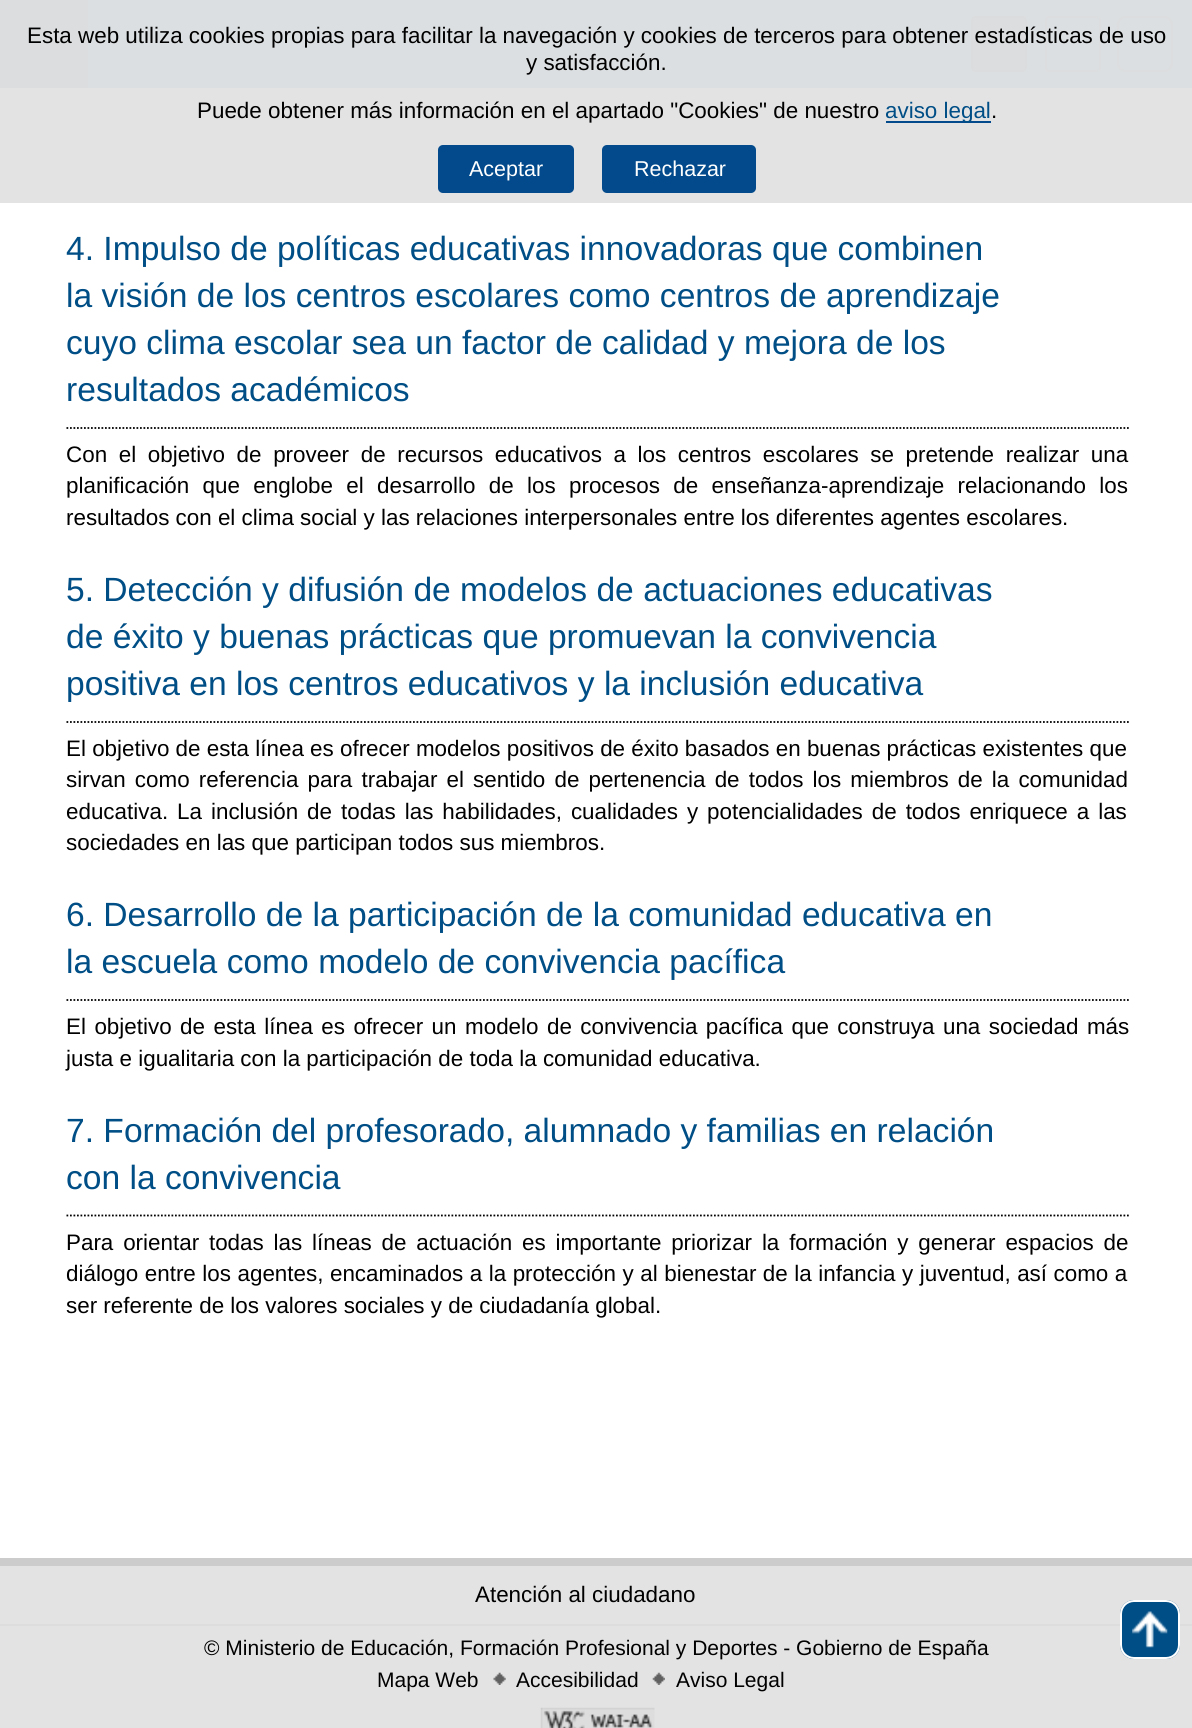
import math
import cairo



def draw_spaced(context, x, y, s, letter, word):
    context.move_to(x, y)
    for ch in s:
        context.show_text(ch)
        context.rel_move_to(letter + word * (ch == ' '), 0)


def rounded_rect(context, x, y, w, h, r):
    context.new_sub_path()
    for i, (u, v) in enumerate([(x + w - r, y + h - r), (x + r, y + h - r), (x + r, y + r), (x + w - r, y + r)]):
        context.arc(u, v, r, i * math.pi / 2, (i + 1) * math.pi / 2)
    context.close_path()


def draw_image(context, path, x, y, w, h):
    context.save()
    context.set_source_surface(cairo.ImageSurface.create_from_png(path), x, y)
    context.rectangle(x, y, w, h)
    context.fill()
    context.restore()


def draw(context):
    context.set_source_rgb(227 / 255, 227 / 255, 227 / 255)
    context.paint()
    context.set_source_rgb(2 / 255, 74 / 255, 139 / 255)
    context.rectangle(886, 121, 105, 2)
    context.fill()
    rounded_rect(context, 438, 145, 136, 48, 5)
    context.fill()
    rounded_rect(context, 602, 145, 154, 48, 5)
    context.fill()
    context.set_source_rgb(220 / 255, 223 / 255, 225 / 255)
    context.rectangle(88, 0, 1104, 88)
    context.fill()
    context.set_source_rgb(219 / 255, 221 / 255, 222 / 255)
    context.rectangle(0, 0, 88, 88)
    context.fill()
    rounded_rect(context, 972, 17, 54, 54, 4)
    context.set_source_rgb(219 / 255, 220 / 255, 221 / 255)
    context.stroke()
    context.set_source_rgb(219 / 255, 221 / 255, 222 / 255)
    context.rectangle(973, 18, 52, 52)
    context.fill()
    rounded_rect(context, 1046, 17, 54, 54, 4)
    context.stroke()
    rounded_rect(context, 1118, 17, 54, 54, 8)
    context.stroke()
    context.set_source_rgb(1, 1, 1)
    context.rectangle(0, 203, 1192, 1355)
    context.fill()
    context.new_path()
    context.move_to(66.5, 428)
    context.line_to(1129, 428)
    context.set_source_rgb(0, 0, 0)
    context.set_line_width(1.8)
    context.set_dash([1.75, 1.75])
    context.stroke()
    context.new_path()
    context.move_to(66.5, 722)
    context.line_to(1129, 722)
    context.stroke()
    context.new_path()
    context.move_to(66.5, 1000)
    context.line_to(1129, 1000)
    context.stroke()
    context.new_path()
    context.move_to(66.5, 1215.5)
    context.line_to(1129, 1215.5)
    context.stroke()
    context.set_source_rgb(204 / 255, 204 / 255, 204 / 255)
    context.rectangle(0, 1558, 1192, 8)
    context.fill()
    context.set_source_rgb(221 / 255, 221 / 255, 221 / 255)
    context.rectangle(0, 1624, 1192, 2)
    context.fill()
    draw_image(context, "images/1.png", 493, 1672, 13, 13)
    draw_image(context, "images/2.png", 652, 1672, 13, 13)
    draw_image(context, "images/3.png", 540, 1707, 115, 21)
    context.set_source_rgb(0, 78 / 255, 134 / 255)
    rounded_rect(context, 1120, 1600, 60, 59, 14)
    context.fill()
    draw_image(context, "images/4.png", 1132, 1611, 36, 37)
    rounded_rect(context, 1121, 1601, 58, 57, 13)
    context.set_source_rgb(1, 1, 1)
    context.set_line_width(2)
    context.set_dash([])
    context.stroke()
    context.select_font_face("Liberation Sans")
    context.set_font_size(22.4)
    context.set_source_rgb(0, 0, 0)
    context.move_to(27, 43)
    context.show_text("Esta web utiliza cookies propias para facilitar la navegación y cookies de terceros para obtener estadísticas de uso")
    context.move_to(526, 70)
    context.show_text("y satisfacción.")
    context.move_to(197, 118)
    context.show_text("Puede obtener más información en el apartado \"Cookies\" de nuestro")
    context.set_source_rgb(0, 78 / 255, 134 / 255)
    context.move_to(885, 118)
    context.show_text("aviso legal")
    context.set_source_rgb(0, 0, 0)
    context.move_to(991, 118)
    context.show_text(".")
    context.set_font_size(21.5)
    context.set_source_rgb(1, 1, 1)
    context.move_to(469, 176)
    context.show_text("Aceptar")
    context.move_to(634, 176)
    context.show_text("Rechazar")
    context.set_font_size(33.6)
    context.set_source_rgb(0, 78 / 255, 134 / 255)
    context.move_to(66, 260)
    context.show_text("4. Impulso de políticas educativas innovadoras que combinen")
    context.move_to(66, 307)
    context.show_text("la visión de los centros escolares como centros de aprendizaje")
    context.move_to(66, 354)
    context.show_text("cuyo clima escolar sea un factor de calidad y mejora de los")
    context.move_to(66, 401)
    context.show_text("resultados académicos")
    context.set_font_size(22.4)
    context.set_source_rgb(0, 0, 0)
    draw_spaced(context, 66, 462, "Con el objetivo de proveer de recursos educativos a los centros escolares se pretende realizar una", 0, 5.4)
    draw_spaced(context, 66, 493, "planificación que englobe el desarrollo de los procesos de enseñanza-aprendizaje relacionando los", 0, 7.1)
    context.move_to(66, 525)
    context.show_text("resultados con el clima social y las relaciones interpersonales entre los diferentes agentes escolares.")
    context.set_font_size(33.6)
    context.set_source_rgb(0, 78 / 255, 134 / 255)
    context.move_to(66, 601)
    context.show_text("5. Detección y difusión de modelos de actuaciones educativas")
    context.move_to(66, 648)
    context.show_text("de éxito y buenas prácticas que promuevan la convivencia")
    context.move_to(66, 695)
    context.show_text("positiva en los centros educativos y la inclusión educativa")
    context.set_font_size(22.4)
    context.set_source_rgb(0, 0, 0)
    context.move_to(66, 756)
    context.show_text("El objetivo de esta línea es ofrecer modelos positivos de éxito basados en buenas prácticas existentes que")
    draw_spaced(context, 66, 787, "sirvan como referencia para trabajar el sentido de pertenencia de todos los miembros de la comunidad", 0, 2.9)
    draw_spaced(context, 66, 819, "educativa. La inclusión de todas las habilidades, cualidades y potencialidades de todos enriquece a las", 0, 2.75)
    context.move_to(66, 850)
    context.show_text("sociedades en las que participan todos sus miembros.")
    context.set_font_size(33.6)
    context.set_source_rgb(0, 78 / 255, 134 / 255)
    context.move_to(66, 926)
    context.show_text("6. Desarrollo de la participación de la comunidad educativa en")
    context.move_to(66, 973)
    context.show_text("la escuela como modelo de convivencia pacífica")
    context.set_font_size(22.4)
    context.set_source_rgb(0, 0, 0)
    draw_spaced(context, 66, 1034, "El objetivo de esta línea es ofrecer un modelo de convivencia pacífica que construya una sociedad más", 0, 2.25)
    context.move_to(66, 1066)
    context.show_text("justa e igualitaria con la participación de toda la comunidad educativa.")
    context.set_font_size(33.6)
    context.set_source_rgb(0, 78 / 255, 134 / 255)
    context.move_to(66, 1142)
    context.show_text("7. Formación del profesorado, alumnado y familias en relación")
    context.move_to(66, 1189)
    context.show_text("con la convivencia")
    context.set_font_size(22.4)
    context.set_source_rgb(0, 0, 0)
    draw_spaced(context, 66, 1250, "Para orientar todas las líneas de actuación es importante priorizar la formación y generar espacios de", 0, 3.6)
    draw_spaced(context, 66, 1281, "diálogo entre los agentes, encaminados a la protección y al bienestar de la infancia y juventud, así como a", 0, 0.3)
    context.move_to(66, 1313)
    context.show_text("ser referente de los valores sociales y de ciudadanía global.")
    context.move_to(475, 1602)
    context.show_text("Atención al ciudadano")
    context.set_font_size(21)
    context.move_to(204, 1655)
    context.show_text("© Ministerio de Educación, Formación Profesional y Deportes - Gobierno de España")
    context.move_to(377, 1687)
    context.show_text("Mapa Web")
    context.move_to(516, 1687)
    context.show_text("Accesibilidad")
    context.move_to(676, 1687)
    context.show_text("Aviso Legal")


surface = cairo.ImageSurface(cairo.Format.RGB24, 1192, 1728)
context = cairo.Context(surface)
options = cairo.FontOptions()
options.set_hint_metrics(cairo.HintMetrics.OFF)
options.set_hint_style(cairo.HintStyle.NONE)
context.set_font_options(options)
context.set_miter_limit(4)
draw(context)
surface.write_to_png("out.png")
